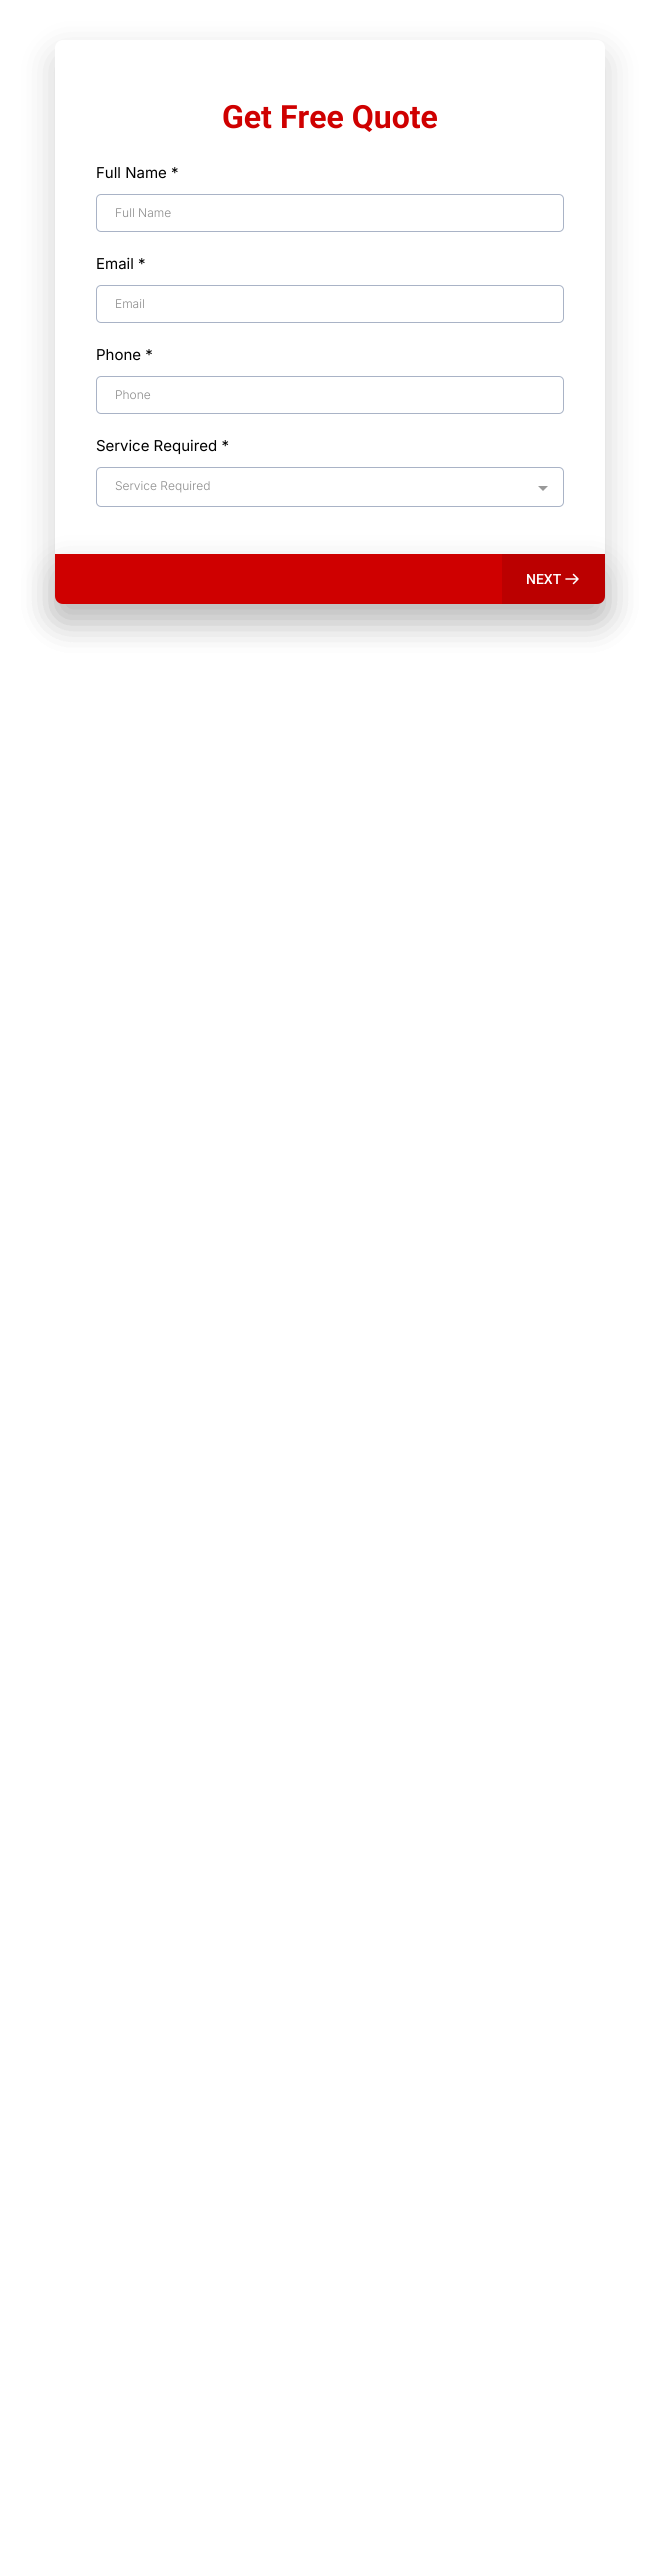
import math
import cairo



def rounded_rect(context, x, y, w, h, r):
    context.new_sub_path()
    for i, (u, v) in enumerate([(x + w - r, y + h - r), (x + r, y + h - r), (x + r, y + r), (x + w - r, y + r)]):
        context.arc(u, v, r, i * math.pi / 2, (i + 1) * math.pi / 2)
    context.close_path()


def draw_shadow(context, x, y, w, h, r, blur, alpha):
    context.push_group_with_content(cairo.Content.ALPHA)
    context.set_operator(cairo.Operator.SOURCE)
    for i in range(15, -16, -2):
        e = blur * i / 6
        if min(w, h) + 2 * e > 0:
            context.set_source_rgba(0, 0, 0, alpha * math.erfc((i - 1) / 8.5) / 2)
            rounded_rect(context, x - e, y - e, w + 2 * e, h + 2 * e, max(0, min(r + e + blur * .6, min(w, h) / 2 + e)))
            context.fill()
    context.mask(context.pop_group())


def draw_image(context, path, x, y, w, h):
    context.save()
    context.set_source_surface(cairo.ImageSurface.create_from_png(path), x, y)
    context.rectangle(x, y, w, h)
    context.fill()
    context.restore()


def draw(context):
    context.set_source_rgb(1, 1, 1)
    context.paint()
    context.set_source_rgb(0, 0, 0)
    draw_shadow(context, 51, 51, 558, 572, 12, 16.5, 0.15)
    context.set_source_rgb(1, 1, 1)
    context.new_path()
    context.move_to(63, 40)
    context.line_to(597, 40)
    context.curve_to(601.5, 40, 605, 43.5, 605, 48)
    context.line_to(605, 554)
    context.line_to(55, 554)
    context.line_to(55, 48)
    context.curve_to(55, 43.5, 58.5, 40, 63, 40)
    context.close_path()
    context.fill()
    rounded_rect(context, 96.5, 194.5, 467, 37, 4.5)
    context.set_source_rgb(169 / 255, 179 / 255, 198 / 255)
    context.set_line_width(1)
    context.stroke()
    rounded_rect(context, 96.5, 285.5, 467, 37, 4.5)
    context.stroke()
    rounded_rect(context, 96.5, 376.5, 467, 37, 4.5)
    context.stroke()
    rounded_rect(context, 96.5, 467.5, 467, 39, 4.5)
    context.stroke()
    context.set_source_rgb(153 / 255, 153 / 255, 153 / 255)
    context.new_path()
    context.move_to(538, 486)
    context.line_to(548, 486)
    context.line_to(543, 491)
    context.close_path()
    context.fill()
    context.set_source_rgb(0, 0, 0)
    draw_shadow(context, 51, 565, 558, 58, 12, 16.5, 0.15)
    context.set_source_rgb(207 / 255, 0, 0)
    context.new_path()
    context.move_to(55, 554)
    context.line_to(605, 554)
    context.line_to(605, 596)
    context.curve_to(605, 600.5, 601.5, 604, 597, 604)
    context.line_to(63, 604)
    context.curve_to(58.5, 604, 55, 600.5, 55, 596)
    context.close_path()
    context.fill()
    context.set_source_rgba(0, 0, 0, 0.1)
    context.new_path()
    context.move_to(502, 554)
    context.line_to(605, 554)
    context.line_to(605, 596)
    context.curve_to(605, 600.5, 601.5, 604, 597, 604)
    context.line_to(502, 604)
    context.close_path()
    context.fill()
    draw_image(context, "images/1.png", 565, 573, 14, 12)
    context.select_font_face("Roboto", cairo.FontSlant.NORMAL, cairo.FontWeight.BOLD)
    context.set_font_size(32)
    context.set_source_rgb(207 / 255, 0, 0)
    context.move_to(222, 128)
    context.show_text("Get Free Quote")
    context.select_font_face("Inter")
    context.set_font_size(15)
    context.set_source_rgb(0, 0, 0)
    context.move_to(96, 178)
    context.show_text("Full Name *")
    context.select_font_face("Inter Light")
    context.set_font_size(12)
    context.set_source_rgb(140 / 255, 140 / 255, 140 / 255)
    context.move_to(115, 217)
    context.show_text("Full Name")
    context.select_font_face("Inter")
    context.set_font_size(15)
    context.set_source_rgb(0, 0, 0)
    context.move_to(96, 269)
    context.show_text("Email *")
    context.select_font_face("Inter Light")
    context.set_font_size(12)
    context.set_source_rgb(140 / 255, 140 / 255, 140 / 255)
    context.move_to(115, 308)
    context.show_text("Email")
    context.select_font_face("Inter")
    context.set_font_size(15)
    context.set_source_rgb(0, 0, 0)
    context.move_to(96, 360)
    context.show_text("Phone *")
    context.select_font_face("Inter Light")
    context.set_font_size(12)
    context.set_source_rgb(140 / 255, 140 / 255, 140 / 255)
    context.move_to(115, 399)
    context.show_text("Phone")
    context.select_font_face("Inter")
    context.set_font_size(15)
    context.set_source_rgb(0, 0, 0)
    context.move_to(96, 451)
    context.show_text("Service Required *")
    context.select_font_face("Inter Light")
    context.set_font_size(12)
    context.set_source_rgb(140 / 255, 140 / 255, 140 / 255)
    context.move_to(115, 490)
    context.show_text("Service Required")
    context.select_font_face("Roboto Medium")
    context.set_font_size(14)
    context.set_source_rgb(1, 1, 1)
    context.move_to(526, 584)
    context.show_text("NEXT")


surface = cairo.ImageSurface(cairo.Format.RGB24, 660, 2569)
context = cairo.Context(surface)
options = cairo.FontOptions()
options.set_hint_metrics(cairo.HintMetrics.OFF)
options.set_hint_style(cairo.HintStyle.NONE)
context.set_font_options(options)
context.set_miter_limit(4)
draw(context)
surface.write_to_png("out.png")
